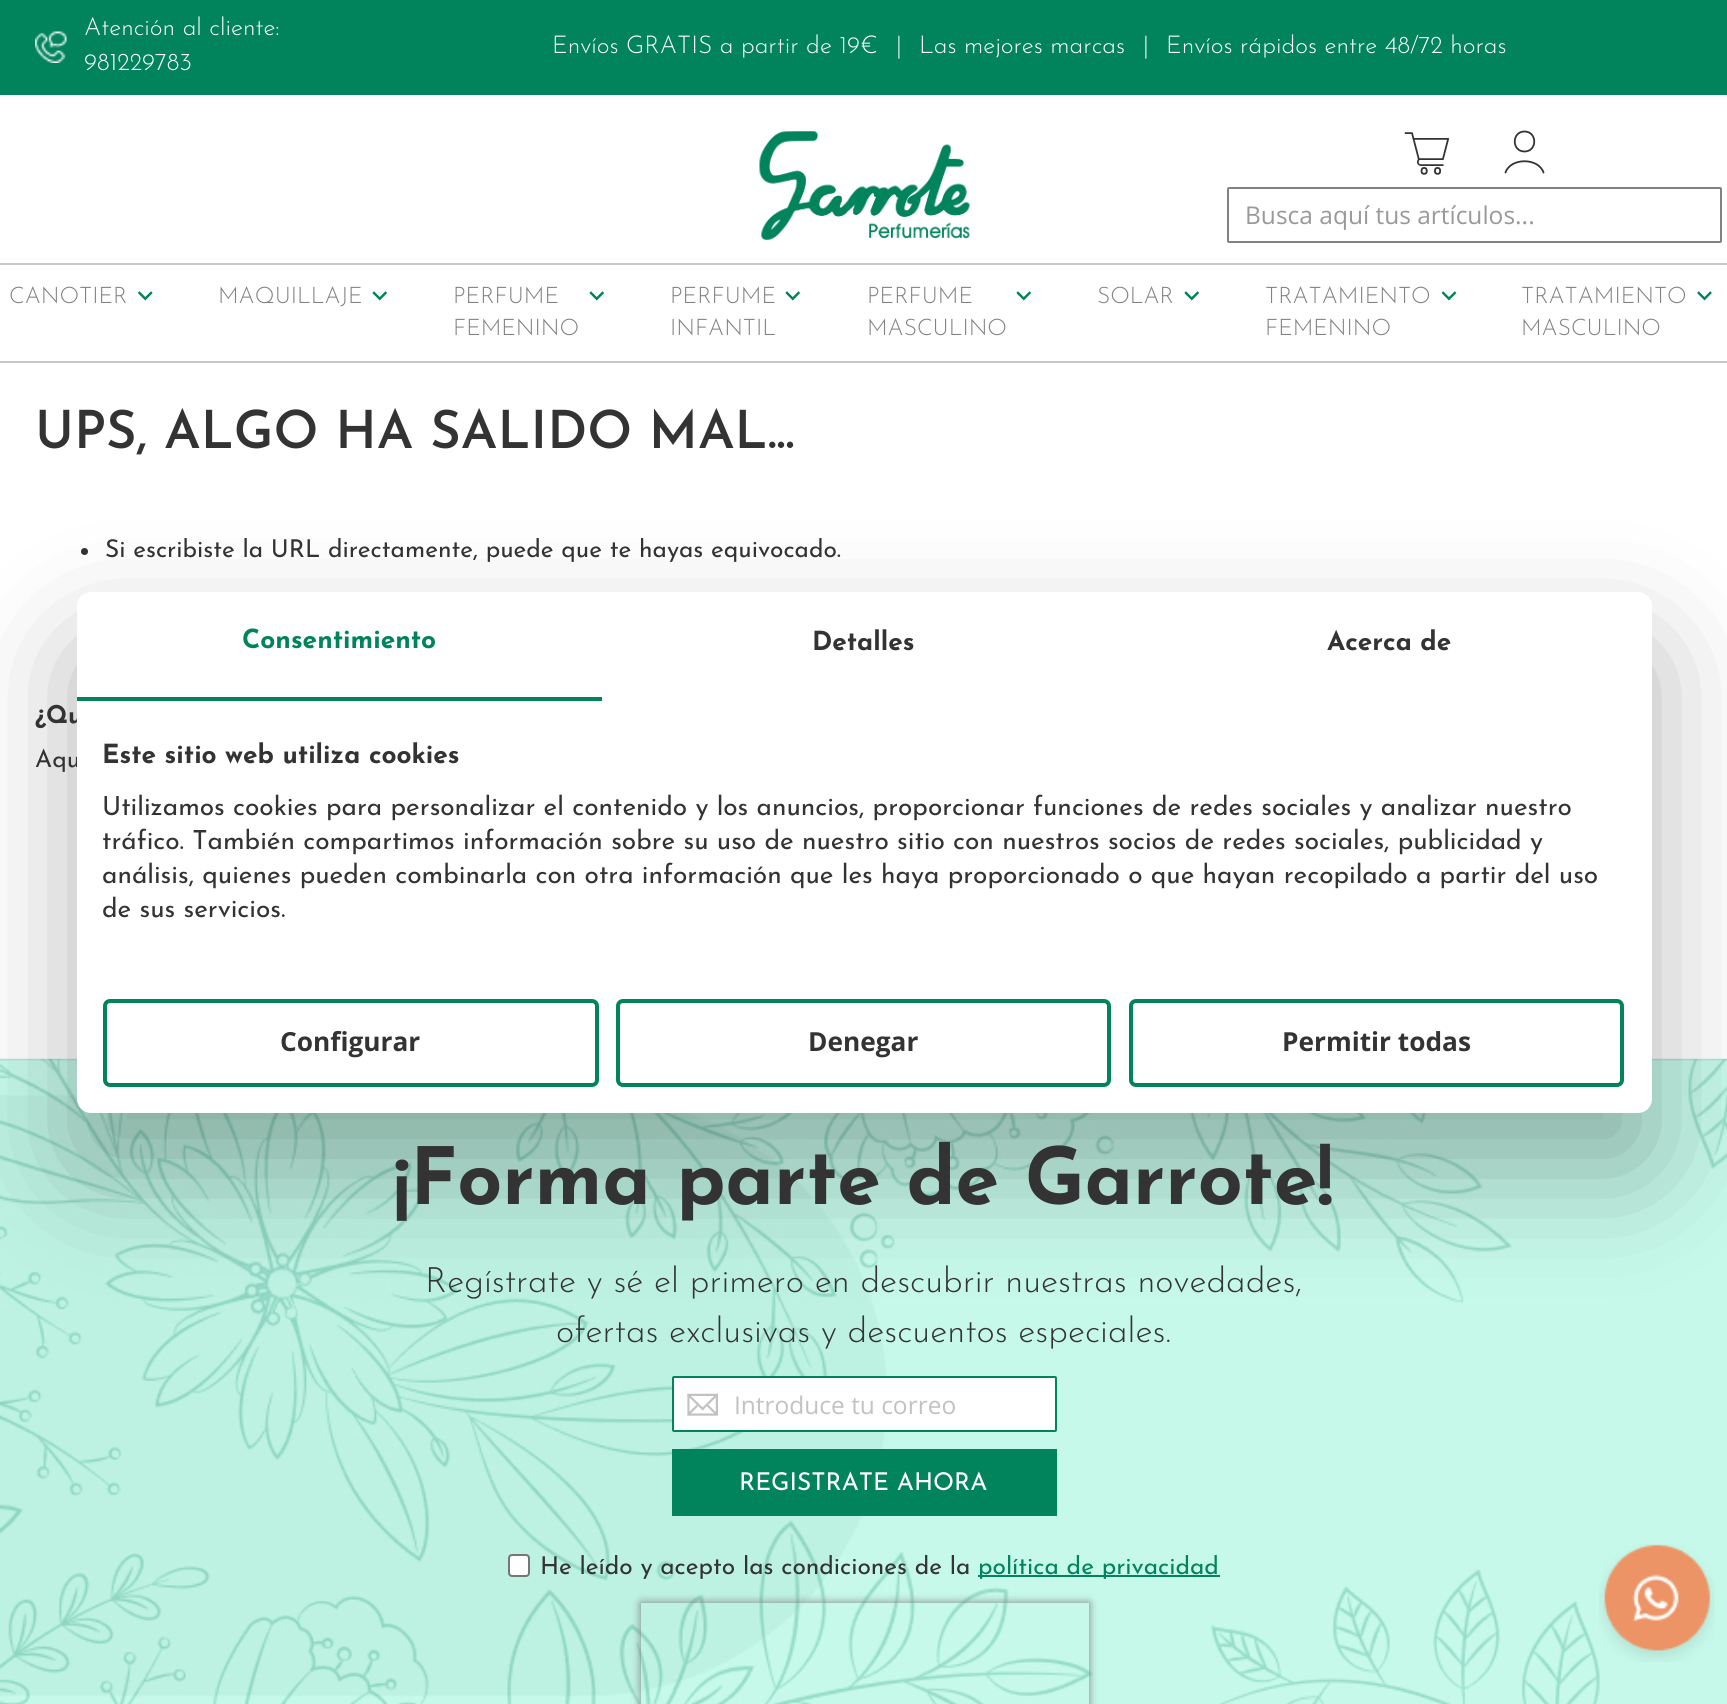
import math
import cairo



def rounded_rect(context, x, y, w, h, r):
    context.new_sub_path()
    for i, (u, v) in enumerate([(x + w - r, y + h - r), (x + r, y + h - r), (x + r, y + r), (x + w - r, y + r)]):
        context.arc(u, v, r, i * math.pi / 2, (i + 1) * math.pi / 2)
    context.close_path()


def draw_shadow(context, x, y, w, h, r, blur, alpha):
    context.push_group_with_content(cairo.Content.ALPHA)
    context.set_operator(cairo.Operator.SOURCE)
    for i in range(15, -16, -2):
        e = blur * i / 6
        if min(w, h) + 2 * e > 0:
            context.set_source_rgba(0, 0, 0, alpha * math.erfc((i - 1) / 8.5) / 2)
            rounded_rect(context, x - e, y - e, w + 2 * e, h + 2 * e, max(0, min(r + e + blur * .6, min(w, h) / 2 + e)))
            context.fill()
    context.mask(context.pop_group())


def draw_image(context, path, x, y, w, h):
    context.save()
    context.set_source_surface(cairo.ImageSurface.create_from_png(path), x, y)
    context.rectangle(x, y, w, h)
    context.fill()
    context.restore()


def draw(context):
    context.set_source_rgb(1, 1, 1)
    context.paint()
    context.set_source_rgb(1 / 255, 131 / 255, 92 / 255)
    context.rectangle(0, 0, 1727, 95)
    context.fill()
    draw_image(context, "images/1.png", 35, 31, 32, 32)
    draw_image(context, "images/2.png", 759, 131, 211, 109)
    draw_image(context, "images/3.png", 1404, 132, 45, 43)
    context.new_path()
    context.move_to(1543.5, 172.5)
    context.curve_to(1538.5, 157.5, 1510.5, 157.5, 1505.5, 172.5)
    context.move_to(1524.5, 151.5)
    context.curve_to(1537.5, 151.5, 1537.5, 131.5, 1524.5, 131.5)
    context.curve_to(1511.5, 131.5, 1511.5, 151.5, 1524.5, 151.5)
    context.close_path()
    context.set_source_rgb(51 / 255, 51 / 255, 51 / 255)
    context.set_line_width(1.8)
    context.set_line_cap(cairo.LineCap.ROUND)
    context.stroke()
    rounded_rect(context, 1228, 188, 493, 54, 1)
    context.set_source_rgb(129 / 255, 129 / 255, 129 / 255)
    context.set_line_width(2)
    context.set_line_cap(cairo.LineCap.BUTT)
    context.stroke()
    context.set_source_rgb(199 / 255, 199 / 255, 199 / 255)
    context.rectangle(0, 263, 1727, 2)
    context.fill()
    context.rectangle(0, 361, 1727, 2)
    context.fill()
    draw_image(context, "images/4.png", 138, 291, 15, 10)
    draw_image(context, "images/5.png", 372, 291, 15, 10)
    draw_image(context, "images/5.png", 589, 291, 15, 10)
    draw_image(context, "images/5.png", 785, 291, 15, 10)
    draw_image(context, "images/6.png", 1016, 291, 15, 10)
    draw_image(context, "images/5.png", 1184, 291, 15, 10)
    draw_image(context, "images/7.png", 1441, 291, 16, 10)
    draw_image(context, "images/8.png", 1697, 291, 15, 10)
    context.set_source_rgb(51 / 255, 51 / 255, 51 / 255)
    context.arc(84.5, 551.5, 3.5, 0, 2 * math.pi)
    context.fill()
    draw_image(context, "images/9.png", 0, 1058, 1727, 646)
    context.set_source_rgb(0, 0, 0)
    draw_shadow(context, 77, 648, 1575, 521, 14, 59.5, 0.3)
    context.set_source_rgb(1, 1, 1)
    rounded_rect(context, 673, 1377, 383, 54, 1)
    context.fill_preserve()
    context.set_source_rgb(1 / 255, 131 / 255, 92 / 255)
    context.stroke()
    draw_image(context, "images/10.png", 687, 1393, 31, 23)
    context.rectangle(672, 1449, 385, 67)
    context.fill()
    context.set_source_rgb(1, 1, 1)
    rounded_rect(context, 509, 1555, 20, 21, 3)
    context.fill_preserve()
    context.set_source_rgb(118 / 255, 118 / 255, 118 / 255)
    context.stroke()
    context.set_source_rgb(1 / 255, 131 / 255, 92 / 255)
    context.rectangle(978, 1575, 242, 2)
    context.fill()
    context.save()
    context.set_fill_rule(cairo.FillRule.EVEN_ODD)
    context.new_path()
    context.move_to(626, 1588)
    context.line_to(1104, 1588)
    context.line_to(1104, 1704)
    context.line_to(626, 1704)
    context.close_path()
    context.move_to(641, 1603)
    context.line_to(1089, 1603)
    context.line_to(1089, 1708)
    context.line_to(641, 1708)
    context.close_path()
    context.clip()
    context.set_source_rgb(128 / 255, 128 / 255, 128 / 255)
    draw_shadow(context, 641, 1603, 448, 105, 0, 4.5, 1)
    context.restore()
    draw_image(context, "images/11.png", 1599, 1544, 116, 118)
    context.select_font_face("Josefin Sans Light")
    context.set_font_size(24.5)
    context.set_source_rgb(1, 1, 1)
    context.move_to(84, 35)
    context.show_text("Atención al cliente:")
    context.move_to(84, 70)
    context.show_text("981229783")
    context.move_to(552, 53)
    context.show_text("Envíos GRATIS a partir de 19€")
    context.move_to(896, 53)
    context.show_text("|")
    context.move_to(919, 53)
    context.show_text("Las mejores marcas")
    context.move_to(1143, 53)
    context.show_text("|")
    context.move_to(1166, 53)
    context.show_text("Envíos rápidos entre 48/72 horas")
    context.select_font_face("Open Sans")
    context.set_source_rgb(153 / 255, 153 / 255, 153 / 255)
    context.move_to(1245, 224)
    context.show_text("Busca aquí tus artículos...")
    context.select_font_face("Josefin Sans Light")
    context.set_font_size(22.75)
    context.set_source_rgb(129 / 255, 129 / 255, 129 / 255)
    context.move_to(9, 303)
    context.show_text("CANOTIER")
    context.move_to(218, 303)
    context.show_text("MAQUILLAJE")
    context.move_to(453, 303)
    context.show_text("PERFUME")
    context.move_to(453, 335)
    context.show_text("FEMENINO")
    context.move_to(670, 303)
    context.show_text("PERFUME")
    context.move_to(670, 335)
    context.show_text("INFANTIL")
    context.move_to(867, 303)
    context.show_text("PERFUME")
    context.move_to(867, 335)
    context.show_text("MASCULINO")
    context.move_to(1097, 303)
    context.show_text("SOLAR")
    context.move_to(1265, 303)
    context.show_text("TRATAMIENTO")
    context.move_to(1265, 335)
    context.show_text("FEMENINO")
    context.move_to(1521, 303)
    context.show_text("TRATAMIENTO")
    context.move_to(1521, 335)
    context.show_text("MASCULINO")
    context.select_font_face("Josefin Sans SemiBold")
    context.set_font_size(52.5)
    context.set_source_rgb(51 / 255, 51 / 255, 51 / 255)
    context.move_to(35, 448)
    context.show_text("UPS, ALGO HA SALIDO MAL...")
    context.select_font_face("Josefin Sans")
    context.set_font_size(24.5)
    context.move_to(105, 557)
    context.show_text("Si escribiste la URL directamente, puede que te hayas equivocado.")
    context.select_font_face("Josefin Sans", cairo.FontSlant.NORMAL, cairo.FontWeight.BOLD)
    context.move_to(35, 723)
    context.show_text("¿Qu")
    context.select_font_face("Josefin Sans")
    context.move_to(35, 767)
    context.show_text("Aqu")
    context.set_source_rgb(1, 1, 1)
    rounded_rect(context, 77, 592, 1575, 521, 14)
    context.fill()
    context.set_source_rgb(1 / 255, 131 / 255, 92 / 255)
    context.rectangle(77, 697, 525, 4)
    context.fill()
    context.select_font_face("Josefin Sans", cairo.FontSlant.NORMAL, cairo.FontWeight.BOLD)
    context.set_font_size(26.25)
    context.move_to(242, 648)
    context.show_text("Consentimiento")
    context.set_source_rgb(51 / 255, 51 / 255, 51 / 255)
    context.move_to(812, 650)
    context.show_text("Detalles")
    context.move_to(1327, 650)
    context.show_text("Acerca de")
    context.move_to(102, 763)
    context.show_text("Este sitio web utiliza cookies")
    context.select_font_face("Josefin Sans")
    context.move_to(102, 815)
    context.show_text("Utilizamos cookies para personalizar el contenido y los anuncios, proporcionar funciones de redes sociales y analizar nuestro")
    context.move_to(102, 849)
    context.show_text("tráfico. También compartimos información sobre su uso de nuestro sitio con nuestros socios de redes sociales, publicidad y")
    context.move_to(102, 883)
    context.show_text("análisis, quienes pueden combinarla con otra información que les haya proporcionado o que hayan recopilado a partir del uso")
    context.move_to(102, 917)
    context.show_text("de sus servicios.")
    rounded_rect(context, 105, 1001, 492, 84, 5)
    context.set_source_rgb(1 / 255, 131 / 255, 92 / 255)
    context.set_line_width(4)
    context.stroke()
    context.select_font_face("Open Sans", cairo.FontSlant.NORMAL, cairo.FontWeight.BOLD)
    context.set_source_rgb(51 / 255, 51 / 255, 51 / 255)
    context.move_to(280, 1051)
    context.show_text("Configurar")
    rounded_rect(context, 618, 1001, 491, 84, 5)
    context.set_source_rgb(1 / 255, 131 / 255, 92 / 255)
    context.stroke()
    context.set_source_rgb(51 / 255, 51 / 255, 51 / 255)
    context.move_to(808, 1051)
    context.show_text("Denegar")
    rounded_rect(context, 1131, 1001, 491, 84, 5)
    context.set_source_rgb(1 / 255, 131 / 255, 92 / 255)
    context.stroke()
    context.set_source_rgb(51 / 255, 51 / 255, 51 / 255)
    context.move_to(1282, 1051)
    context.show_text("Permitir todas")
    context.select_font_face("Josefin Sans", cairo.FontSlant.NORMAL, cairo.FontWeight.BOLD)
    context.set_font_size(78.75)
    context.move_to(394, 1204)
    context.show_text("¡Forma parte de Garrote!")
    context.select_font_face("Josefin Sans Light")
    context.set_font_size(35)
    context.move_to(425, 1292)
    context.show_text("Regístrate y sé el primero en descubrir nuestras novedades,")
    context.move_to(556, 1342)
    context.show_text("ofertas exclusivas y descuentos especiales.")
    context.select_font_face("Open Sans")
    context.set_font_size(24.5)
    context.set_source_rgb(194 / 255, 194 / 255, 194 / 255)
    context.move_to(734, 1414)
    context.show_text("Introduce tu correo")
    context.select_font_face("Josefin Sans")
    context.set_source_rgb(1, 1, 1)
    context.move_to(739, 1490)
    context.show_text("REGISTRATE AHORA")
    context.set_source_rgb(51 / 255, 51 / 255, 51 / 255)
    context.move_to(540, 1574)
    context.show_text("He leído y acepto las condiciones de la")
    context.set_source_rgb(1 / 255, 131 / 255, 92 / 255)
    context.move_to(978, 1574)
    context.show_text("política de privacidad")


surface = cairo.ImageSurface(cairo.Format.RGB24, 1727, 1704)
context = cairo.Context(surface)
options = cairo.FontOptions()
options.set_hint_metrics(cairo.HintMetrics.OFF)
options.set_hint_style(cairo.HintStyle.NONE)
context.set_font_options(options)
context.set_miter_limit(4)
draw(context)
surface.write_to_png("out.png")
